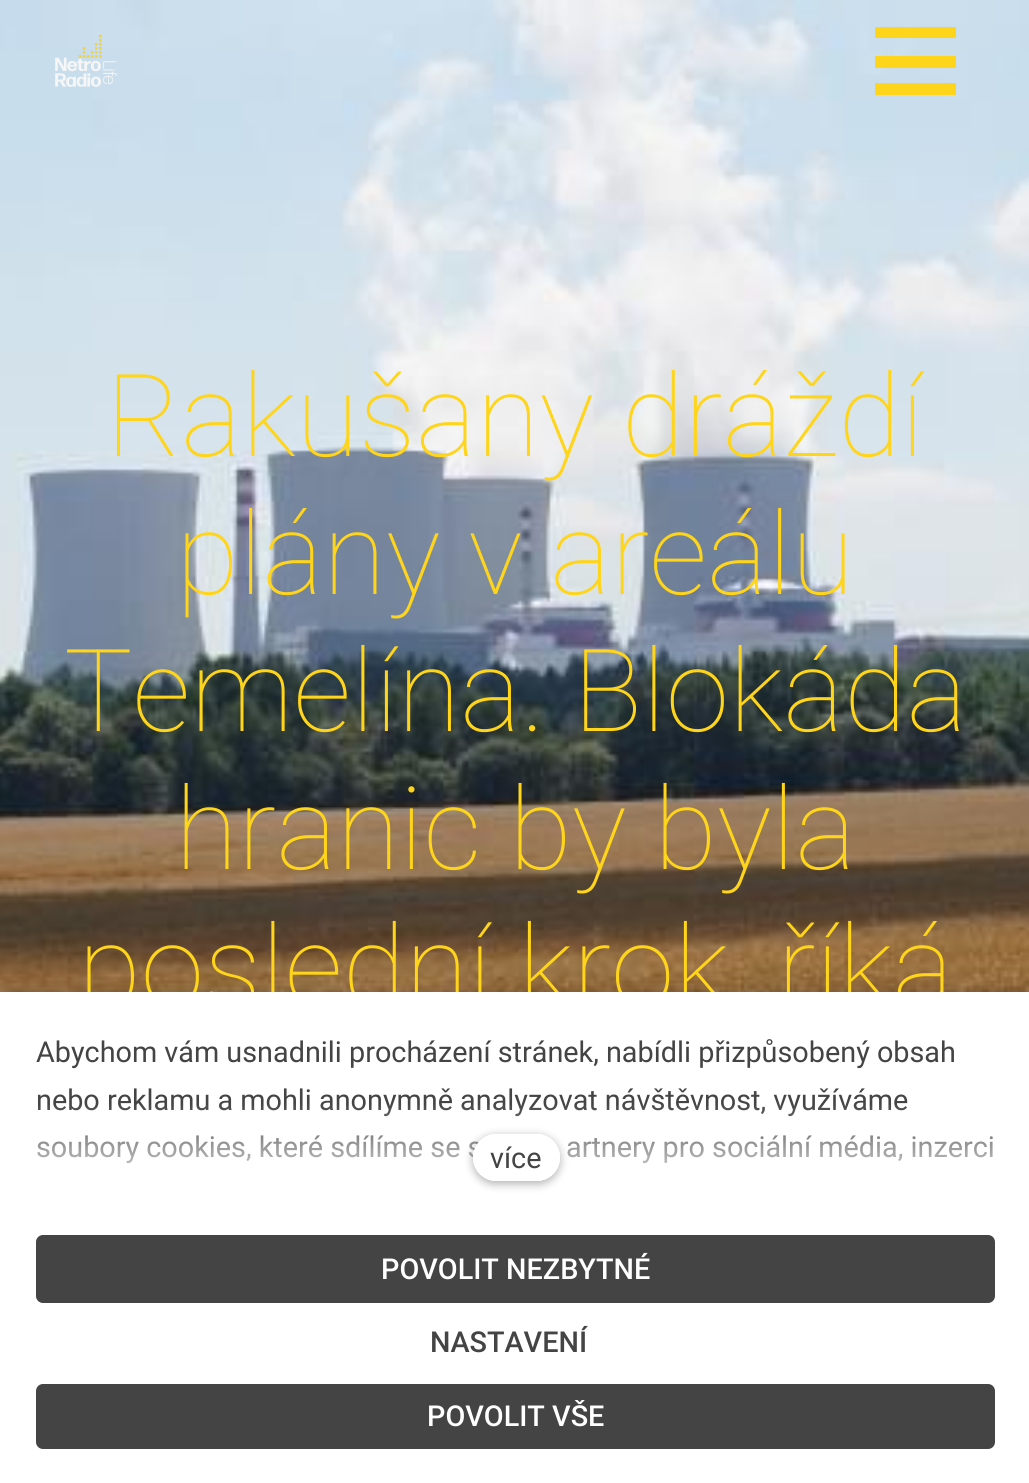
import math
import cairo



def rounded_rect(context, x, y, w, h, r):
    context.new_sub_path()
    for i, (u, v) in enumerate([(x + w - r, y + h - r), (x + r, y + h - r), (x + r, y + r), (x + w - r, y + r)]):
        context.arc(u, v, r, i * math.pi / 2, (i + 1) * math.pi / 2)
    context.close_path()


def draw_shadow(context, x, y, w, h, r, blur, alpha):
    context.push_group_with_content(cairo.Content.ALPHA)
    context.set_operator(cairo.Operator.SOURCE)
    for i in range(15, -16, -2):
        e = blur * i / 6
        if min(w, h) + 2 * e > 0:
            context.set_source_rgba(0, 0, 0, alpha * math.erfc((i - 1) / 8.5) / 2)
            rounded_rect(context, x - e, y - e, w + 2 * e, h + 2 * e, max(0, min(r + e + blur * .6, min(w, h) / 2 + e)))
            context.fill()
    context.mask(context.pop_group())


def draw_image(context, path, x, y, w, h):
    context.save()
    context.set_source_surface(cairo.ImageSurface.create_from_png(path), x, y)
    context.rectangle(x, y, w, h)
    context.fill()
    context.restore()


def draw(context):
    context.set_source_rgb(1, 1, 1)
    context.paint()
    draw_image(context, "images/2.png", 0, 0, 1029, 992)
    draw_image(context, "images/1.png", 55, 34, 62, 53)
    context.set_source_rgb(1, 213 / 255, 27 / 255)
    context.rectangle(875, 27, 81, 11)
    context.fill()
    context.rectangle(875, 56, 81, 12)
    context.fill()
    context.rectangle(875, 83, 81, 12)
    context.fill()
    context.set_source_rgb(0, 0, 0)
    draw_shadow(context, 0, 992, 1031, 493, 0, 13.5, 0.25)
    context.select_font_face("Roboto Thin")
    context.set_font_size(114.75)
    context.set_source_rgb(1, 213 / 255, 27 / 255)
    context.move_to(106, 456)
    context.show_text("Rakušany dráždí")
    context.move_to(176, 594)
    context.show_text("plány v areálu")
    context.move_to(64, 731)
    context.show_text("Temelína. Blokáda")
    context.move_to(175, 869)
    context.show_text("hranic by byla")
    context.move_to(78, 1007)
    context.show_text("poslední krok, říká")
    context.set_source_rgb(1, 1, 1)
    context.rectangle(0, 992, 1029, 491)
    context.fill()
    context.select_font_face("Roboto")
    context.set_font_size(28.8)
    context.set_source_rgb(68 / 255, 68 / 255, 68 / 255)
    context.move_to(36, 1062)
    context.show_text("Abychom vám usnadnili procházení stránek, nabídli přizpůsobený obsah")
    context.move_to(36, 1110)
    context.show_text("nebo reklamu a mohli anonymně analyzovat návštěvnost, využíváme")
    context.move_to(36, 1157)
    context.show_text("soubory cookies, které sdílíme se s")
    context.move_to(566, 1157)
    context.show_text("artnery pro sociální média, inzerci")
    gradient = cairo.LinearGradient(515, 1199, 515, 1103)
    gradient.add_color_stop_rgba(0, 1, 1, 1, 1)
    gradient.add_color_stop_rgba(1, 1, 1, 1, 0)
    context.set_source(gradient)
    context.rectangle(37, 1105, 956, 59)
    context.fill()
    context.save()
    context.set_fill_rule(cairo.FillRule.EVEN_ODD)
    context.new_path()
    context.move_to(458, 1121)
    context.line_to(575, 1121)
    context.line_to(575, 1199)
    context.line_to(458, 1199)
    context.close_path()
    context.move_to(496.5, 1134)
    context.line_to(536.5, 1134)
    context.curve_to(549.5, 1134, 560, 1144.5, 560, 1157.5)
    context.curve_to(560, 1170.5, 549.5, 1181, 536.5, 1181)
    context.line_to(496.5, 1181)
    context.curve_to(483.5, 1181, 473, 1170.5, 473, 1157.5)
    context.curve_to(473, 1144.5, 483.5, 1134, 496.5, 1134)
    context.close_path()
    context.clip()
    context.set_source_rgb(0, 0, 0)
    draw_shadow(context, 473, 1136, 87, 48, 24, 4.5, 0.3)
    context.restore()
    context.set_source_rgb(1, 1, 1)
    rounded_rect(context, 473, 1134, 87, 47, 23.5)
    context.fill()
    context.set_source_rgb(68 / 255, 68 / 255, 68 / 255)
    context.move_to(490, 1168)
    context.show_text("více")
    rounded_rect(context, 36, 1235, 959, 68, 7)
    context.fill()
    context.select_font_face("Roboto Medium")
    context.set_source_rgb(1, 1, 1)
    context.move_to(381, 1279)
    context.show_text("POVOLIT NEZBYTNÉ")
    context.set_source_rgb(68 / 255, 68 / 255, 68 / 255)
    context.move_to(430, 1352)
    context.show_text("NASTAVENÍ")
    rounded_rect(context, 36, 1384, 959, 65, 7)
    context.fill()
    context.set_source_rgb(1, 1, 1)
    context.move_to(427, 1426)
    context.show_text("POVOLIT VŠE")


surface = cairo.ImageSurface(cairo.Format.RGB24, 1029, 1483)
context = cairo.Context(surface)
options = cairo.FontOptions()
options.set_hint_metrics(cairo.HintMetrics.OFF)
options.set_hint_style(cairo.HintStyle.NONE)
context.set_font_options(options)
context.set_miter_limit(4)
draw(context)
surface.write_to_png("out.png")
